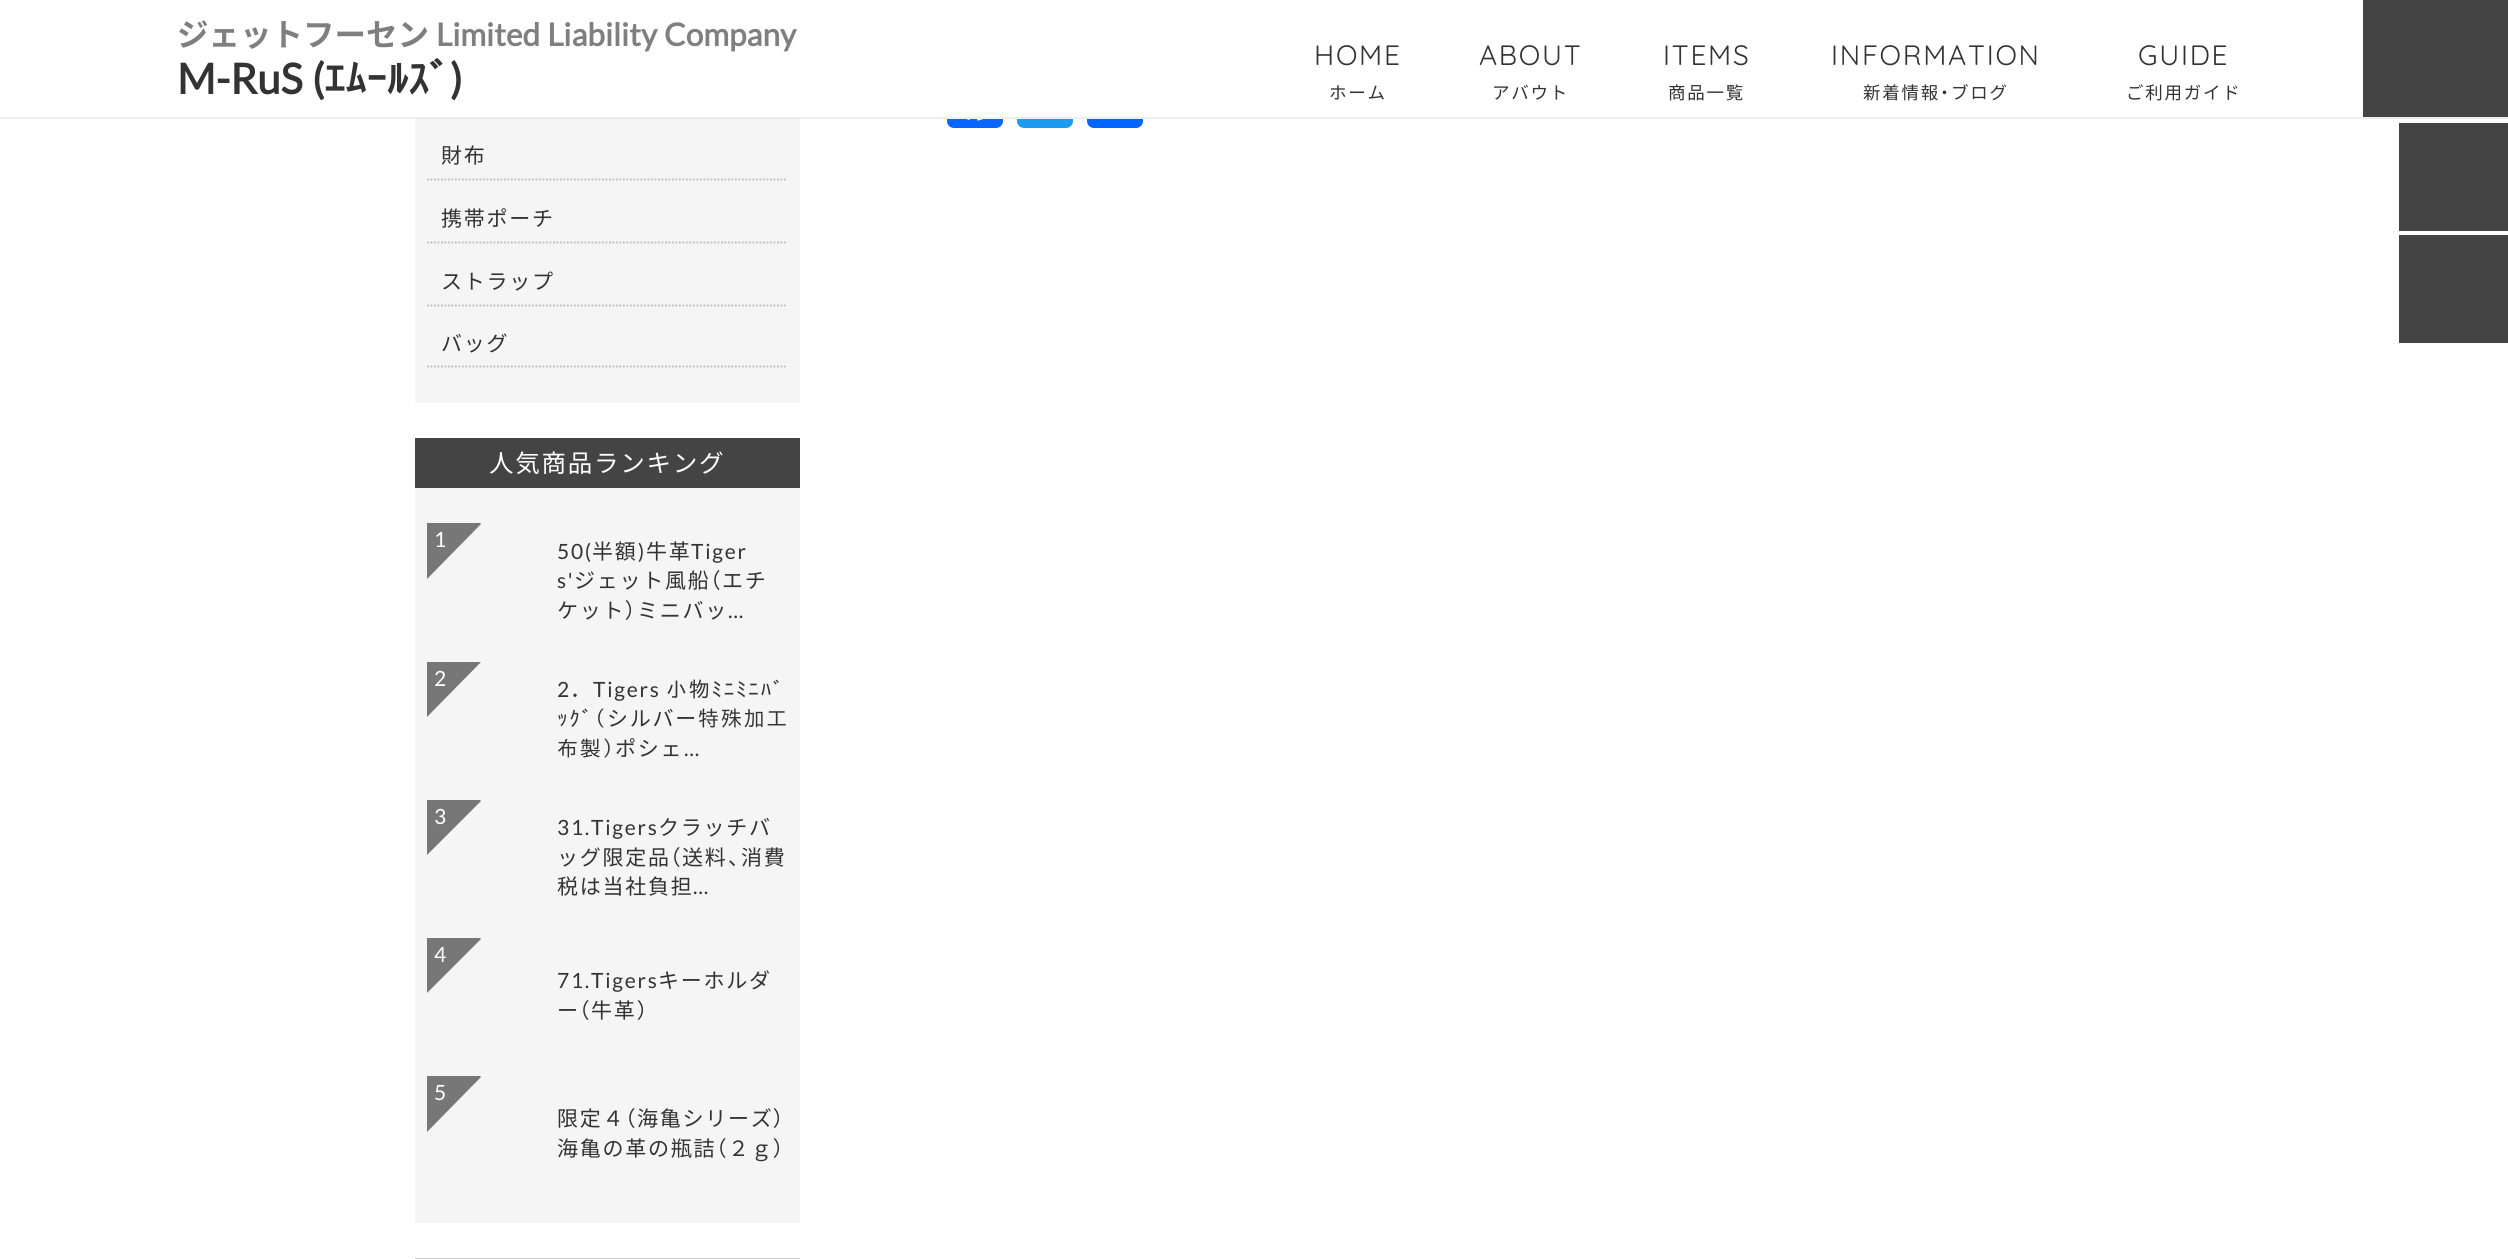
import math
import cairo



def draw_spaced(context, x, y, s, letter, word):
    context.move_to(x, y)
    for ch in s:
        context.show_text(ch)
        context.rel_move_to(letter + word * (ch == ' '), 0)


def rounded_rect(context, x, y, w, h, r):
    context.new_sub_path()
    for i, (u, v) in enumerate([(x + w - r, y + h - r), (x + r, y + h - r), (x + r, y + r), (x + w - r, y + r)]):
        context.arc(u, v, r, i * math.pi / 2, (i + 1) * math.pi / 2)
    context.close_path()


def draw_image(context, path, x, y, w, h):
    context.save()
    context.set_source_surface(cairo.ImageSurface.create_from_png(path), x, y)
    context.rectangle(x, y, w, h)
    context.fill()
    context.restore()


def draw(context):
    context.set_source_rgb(1, 1, 1)
    context.paint()
    context.set_source_rgb(8 / 255, 102 / 255, 1)
    rounded_rect(context, 947, 72, 56, 56, 7)
    context.fill()
    context.set_source_rgb(29 / 255, 155 / 255, 240 / 255)
    rounded_rect(context, 1017, 72, 56, 56, 7)
    context.fill()
    context.set_source_rgb(1 / 255, 102 / 255, 1)
    rounded_rect(context, 1087, 72, 56, 56, 7)
    context.fill()
    context.set_source_rgb(1, 1, 1)
    context.rectangle(947, 72, 196, 45)
    context.fill()
    context.set_source_rgb(238 / 255, 238 / 255, 238 / 255)
    context.rectangle(0, 117, 2508, 2)
    context.fill()
    context.set_source_rgb(68 / 255, 68 / 255, 68 / 255)
    context.rectangle(2363, 0, 145, 117)
    context.fill()
    draw_image(context, "images/1.png", 966, 119, 17, 2)
    context.set_source_rgb(245 / 255, 245 / 255, 245 / 255)
    context.rectangle(415, 119, 385, 284)
    context.fill()
    context.new_path()
    context.move_to(427, 179.5)
    context.line_to(787.5, 179.5)
    context.set_source_rgb(191 / 255, 186 / 255, 186 / 255)
    context.set_line_width(1.8)
    context.set_dash([1.75, 1.75])
    context.stroke()
    context.new_path()
    context.move_to(427, 242.5)
    context.line_to(787.5, 242.5)
    context.stroke()
    context.new_path()
    context.move_to(427, 305.5)
    context.line_to(787.5, 305.5)
    context.stroke()
    context.new_path()
    context.move_to(427, 366.5)
    context.line_to(787.5, 366.5)
    context.stroke()
    context.set_source_rgb(245 / 255, 245 / 255, 245 / 255)
    context.rectangle(415, 488, 385, 735)
    context.fill()
    context.set_source_rgb(68 / 255, 68 / 255, 68 / 255)
    context.rectangle(415, 438, 385, 50)
    context.fill()
    context.save()
    context.rectangle(427, 523, 361, 112)
    context.clip()
    context.set_source_rgb(119 / 255, 119 / 255, 119 / 255)
    context.new_path()
    context.move_to(427, 470)
    context.line_to(481, 524)
    context.line_to(427, 579)
    context.line_to(373, 524)
    context.close_path()
    context.fill()
    context.restore()
    context.save()
    context.rectangle(427, 662, 361, 112)
    context.clip()
    context.set_source_rgb(119 / 255, 119 / 255, 119 / 255)
    context.new_path()
    context.move_to(427, 608)
    context.line_to(481, 662)
    context.line_to(427, 717)
    context.line_to(373, 662)
    context.close_path()
    context.fill()
    context.restore()
    context.save()
    context.rectangle(427, 800, 361, 112)
    context.clip()
    context.set_source_rgb(119 / 255, 119 / 255, 119 / 255)
    context.new_path()
    context.move_to(427, 746)
    context.line_to(481, 801)
    context.line_to(427, 855)
    context.line_to(373, 801)
    context.close_path()
    context.fill()
    context.restore()
    context.save()
    context.rectangle(427, 938, 361, 112)
    context.clip()
    context.set_source_rgb(119 / 255, 119 / 255, 119 / 255)
    context.new_path()
    context.move_to(427, 884)
    context.line_to(481, 939)
    context.line_to(427, 993)
    context.line_to(373, 939)
    context.close_path()
    context.fill()
    context.restore()
    context.save()
    context.rectangle(427, 1076, 361, 112)
    context.clip()
    context.set_source_rgb(119 / 255, 119 / 255, 119 / 255)
    context.new_path()
    context.move_to(427, 1023)
    context.line_to(481, 1077)
    context.line_to(427, 1132)
    context.line_to(373, 1077)
    context.close_path()
    context.fill()
    context.restore()
    context.rectangle(416, 1259, 383, 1)
    context.set_source_rgb(202 / 255, 202 / 255, 202 / 255)
    context.set_line_width(2)
    context.set_dash([])
    context.stroke()
    context.set_source_rgb(68 / 255, 68 / 255, 68 / 255)
    context.rectangle(2399, 123, 109, 108)
    context.fill()
    context.rectangle(2399, 235, 109, 108)
    context.fill()
    context.select_font_face("Noto Sans JP", cairo.FontSlant.NORMAL, cairo.FontWeight.BOLD)
    context.set_font_size(31.5)
    context.set_source_rgb(127 / 255, 127 / 255, 127 / 255)
    context.move_to(177, 46)
    context.show_text("ジェットフーセン")
    context.select_font_face("Lato", cairo.FontSlant.NORMAL, cairo.FontWeight.BOLD)
    draw_spaced(context, 436, 46, "Limited Liability Company", 0, 1)
    context.set_font_size(42)
    context.set_source_rgb(51 / 255, 51 / 255, 51 / 255)
    draw_spaced(context, 177, 94, "M-RuS (", 0, 1)
    context.select_font_face("IPAPGothic", cairo.FontSlant.NORMAL, cairo.FontWeight.BOLD)
    context.move_to(324, 94)
    context.show_text("ｴﾑｰﾙｽﾞ")
    context.select_font_face("Lato", cairo.FontSlant.NORMAL, cairo.FontWeight.BOLD)
    context.move_to(450, 94)
    context.show_text(")")
    context.select_font_face("Quicksand")
    context.set_font_size(28)
    draw_spaced(context, 1314, 65, "HOME", 1.75, 0)
    context.select_font_face("Noto Sans JP")
    context.set_font_size(17.5)
    draw_spaced(context, 1329, 99, "ホーム", 1.75, 0)
    context.select_font_face("Quicksand")
    context.set_font_size(28)
    draw_spaced(context, 1479, 65, "ABOUT", 1.75, 0)
    context.select_font_face("Noto Sans JP")
    context.set_font_size(17.5)
    draw_spaced(context, 1492, 99, "アバウト", 1.75, 0)
    context.select_font_face("Quicksand")
    context.set_font_size(28)
    draw_spaced(context, 1663, 65, "ITEMS", 1.75, 0)
    context.select_font_face("Noto Sans JP")
    context.set_font_size(17.5)
    draw_spaced(context, 1668, 99, "商品一覧", 1.75, 0)
    context.select_font_face("Quicksand")
    context.set_font_size(28)
    draw_spaced(context, 1831, 65, "INFORMATION", 1.75, 0)
    context.select_font_face("Noto Sans JP")
    context.set_font_size(17.5)
    draw_spaced(context, 1863, 99, "新着情報", 1.75, 0)
    context.select_font_face("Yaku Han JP")
    draw_spaced(context, 1940, 99, "・", 1.75, 0)
    context.select_font_face("Noto Sans JP")
    draw_spaced(context, 1951, 99, "ブログ", 1.75, 0)
    context.select_font_face("Quicksand")
    context.set_font_size(28)
    draw_spaced(context, 2138, 65, "GUIDE", 1.75, 0)
    context.select_font_face("Noto Sans JP")
    context.set_font_size(17.5)
    draw_spaced(context, 2126, 99, "ご利用ガイド", 1.75, 0)
    context.set_font_size(21)
    draw_spaced(context, 441, 163, "財布", 1.75, 0)
    draw_spaced(context, 441, 226, "携帯ポーチ", 1.75, 0)
    draw_spaced(context, 441, 289, "ストラップ", 1.75, 0)
    draw_spaced(context, 441, 351, "バッグ", 1.75, 0)
    context.set_font_size(24.5)
    context.set_source_rgb(1, 1, 1)
    draw_spaced(context, 489, 472, "人気商品ランキング", 1.75, 0)
    context.select_font_face("Lato")
    context.set_font_size(21)
    draw_spaced(context, 434, 547, "1", 1.75, 0)
    context.set_source_rgb(51 / 255, 51 / 255, 51 / 255)
    draw_spaced(context, 557, 559, "50(", 1.75, 0)
    context.select_font_face("Noto Sans JP")
    draw_spaced(context, 592, 559, "半額", 1.75, 0)
    context.select_font_face("Lato")
    draw_spaced(context, 638, 559, ")", 1.75, 0)
    context.select_font_face("Noto Sans JP")
    draw_spaced(context, 646, 559, "牛革", 1.75, 0)
    context.select_font_face("Lato")
    draw_spaced(context, 691, 559, "Tiger", 1.75, 0)
    draw_spaced(context, 557, 588, "s'", 1.75, 0)
    context.select_font_face("Noto Sans JP")
    draw_spaced(context, 574, 588, "ジェット風船", 1.75, 0)
    context.select_font_face("Yaku Han JP")
    draw_spaced(context, 710, 588, "（", 1.75, 0)
    context.select_font_face("Noto Sans JP")
    draw_spaced(context, 722, 588, "エチ", 1.75, 0)
    draw_spaced(context, 557, 618, "ケット", 1.75, 0)
    context.select_font_face("Yaku Han JP")
    draw_spaced(context, 625, 618, "）", 1.75, 0)
    context.select_font_face("Noto Sans JP")
    draw_spaced(context, 637, 618, "ミニバッ", 1.75, 0)
    context.select_font_face("Lato")
    draw_spaced(context, 728, 618, "…", 1.75, 0)
    context.set_source_rgb(1, 1, 1)
    draw_spaced(context, 434, 686, "2", 1.75, 0)
    context.set_source_rgb(51 / 255, 51 / 255, 51 / 255)
    draw_spaced(context, 557, 697, "2", 1.75, 0)
    context.select_font_face("Noto Sans JP")
    draw_spaced(context, 570, 697, "．", 1.75, 0)
    context.select_font_face("Lato")
    draw_spaced(context, 593, 697, "Tigers", 1.75, 0)
    context.select_font_face("IPAPGothic")
    draw_spaced(context, 666, 697, "小物ﾐﾆﾐﾆﾊﾞ", 1.75, 0)
    draw_spaced(context, 557, 726, "ｯｸﾞ（", 1.75, 0)
    context.select_font_face("Noto Sans JP")
    draw_spaced(context, 607, 726, "シルバー", 1.75, 0)
    context.select_font_face("IPAPGothic")
    draw_spaced(context, 698, 726, "特殊加工", 1.75, 0)
    draw_spaced(context, 557, 756, "布製）", 1.75, 0)
    context.select_font_face("Noto Sans JP")
    draw_spaced(context, 615, 756, "ポシェ", 1.75, 0)
    context.select_font_face("Lato")
    draw_spaced(context, 684, 756, "…", 1.75, 0)
    context.set_source_rgb(1, 1, 1)
    draw_spaced(context, 434, 824, "3", 1.75, 0)
    context.set_source_rgb(51 / 255, 51 / 255, 51 / 255)
    draw_spaced(context, 557, 835, "31.Tigers", 1.75, 0)
    context.select_font_face("Noto Sans JP")
    draw_spaced(context, 658, 835, "クラッチバ", 1.75, 0)
    draw_spaced(context, 557, 865, "ッグ限定品", 1.75, 0)
    context.select_font_face("Yaku Han JP")
    draw_spaced(context, 670, 865, "（", 1.75, 0)
    context.select_font_face("Noto Sans JP")
    draw_spaced(context, 682, 865, "送料", 1.75, 0)
    context.select_font_face("Yaku Han JP")
    draw_spaced(context, 728, 865, "、", 1.75, 0)
    context.select_font_face("Noto Sans JP")
    draw_spaced(context, 741, 865, "消費", 1.75, 0)
    draw_spaced(context, 557, 894, "税は当社負担", 1.75, 0)
    context.select_font_face("Lato")
    draw_spaced(context, 693, 894, "…", 1.75, 0)
    context.set_source_rgb(1, 1, 1)
    draw_spaced(context, 434, 962, "4", 1.75, 0)
    context.set_source_rgb(51 / 255, 51 / 255, 51 / 255)
    draw_spaced(context, 557, 988, "71.Tigers", 1.75, 0)
    context.select_font_face("Noto Sans JP")
    draw_spaced(context, 658, 988, "キーホルダ", 1.75, 0)
    draw_spaced(context, 557, 1018, "ー", 1.75, 0)
    context.select_font_face("Yaku Han JP")
    draw_spaced(context, 579, 1018, "（", 1.75, 0)
    context.select_font_face("Noto Sans JP")
    draw_spaced(context, 591, 1018, "牛革", 1.75, 0)
    context.select_font_face("Yaku Han JP")
    draw_spaced(context, 637, 1018, "）", 1.75, 0)
    context.select_font_face("Lato")
    context.set_source_rgb(1, 1, 1)
    draw_spaced(context, 434, 1100, "5", 1.75, 0)
    context.select_font_face("Noto Sans JP")
    context.set_source_rgb(51 / 255, 51 / 255, 51 / 255)
    draw_spaced(context, 557, 1126, "限定４", 1.75, 0)
    context.select_font_face("Yaku Han JP")
    draw_spaced(context, 625, 1126, "（", 1.75, 0)
    context.select_font_face("Noto Sans JP")
    draw_spaced(context, 637, 1126, "海亀シリーズ", 1.75, 0)
    context.select_font_face("Yaku Han JP")
    draw_spaced(context, 773, 1126, "）", 1.75, 0)
    context.select_font_face("Noto Sans JP")
    draw_spaced(context, 557, 1156, "海亀の革の瓶詰", 1.75, 0)
    context.select_font_face("Yaku Han JP")
    draw_spaced(context, 716, 1156, "（", 1.75, 0)
    context.select_font_face("Noto Sans JP")
    draw_spaced(context, 728, 1156, "２ｇ", 1.75, 0)
    context.select_font_face("Yaku Han JP")
    draw_spaced(context, 773, 1156, "）", 1.75, 0)


surface = cairo.ImageSurface(cairo.Format.RGB24, 2508, 1259)
context = cairo.Context(surface)
options = cairo.FontOptions()
options.set_hint_metrics(cairo.HintMetrics.OFF)
options.set_hint_style(cairo.HintStyle.NONE)
context.set_font_options(options)
context.set_miter_limit(4)
draw(context)
surface.write_to_png("out.png")
